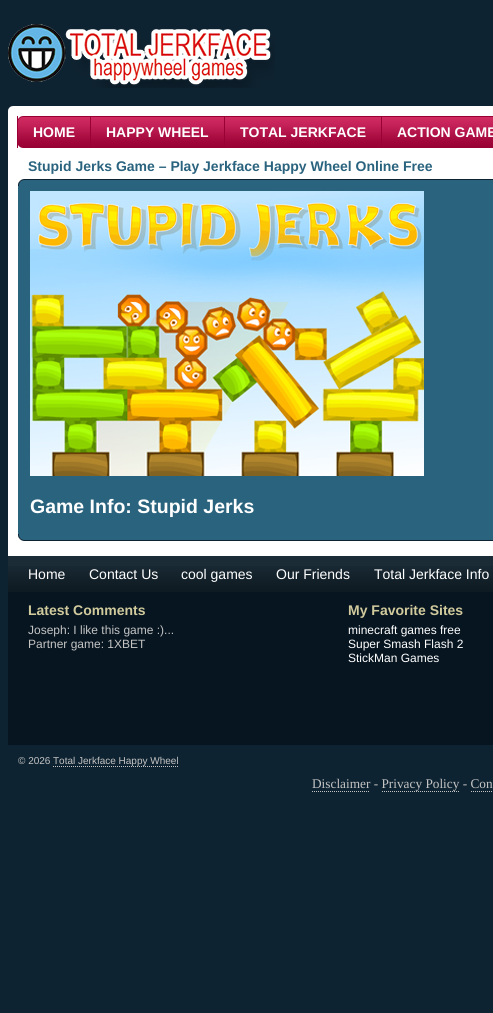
import math
import cairo



def draw_image(context, path, x, y, w, h):
    context.save()
    context.set_source_surface(cairo.ImageSurface.create_from_png(path), x, y)
    context.rectangle(x, y, w, h)
    context.fill()
    context.restore()


def draw(context):
    context.set_source_rgb(14 / 255, 35 / 255, 49 / 255)
    context.paint()
    draw_image(context, "images/1.png", 8, 24, 267, 64)
    context.set_source_rgb(1, 1, 1)
    context.rectangle(8, 106, 485, 450)
    context.fill()
    draw_image(context, "images/2.png", 8, 106, 5, 5)
    draw_image(context, "images/3.png", 18, 116, 475, 32)
    context.set_source_rgb(153 / 255, 0, 51 / 255)
    context.rectangle(17, 116, 1, 32)
    context.fill()
    context.rectangle(90, 116, 1, 32)
    context.fill()
    context.rectangle(224, 116, 1, 32)
    context.fill()
    context.rectangle(381, 116, 1, 32)
    context.fill()
    draw_image(context, "images/4.png", 18, 179, 475, 7)
    context.set_source_rgb(42 / 255, 99 / 255, 126 / 255)
    context.rectangle(18, 186, 475, 348)
    context.fill()
    draw_image(context, "images/5.png", 30, 191, 394, 285)
    draw_image(context, "images/6.png", 18, 534, 475, 7)
    context.set_source_rgb(27 / 255, 44 / 255, 55 / 255)
    context.rectangle(8, 556, 485, 10)
    context.fill()
    draw_image(context, "images/7.png", 8, 566, 485, 26)
    context.set_source_rgb(7 / 255, 21 / 255, 32 / 255)
    context.rectangle(8, 592, 485, 153)
    context.fill()
    context.new_path()
    context.move_to(53, 766.5)
    context.line_to(179, 766.5)
    context.set_source_rgb(196 / 255, 196 / 255, 196 / 255)
    context.set_line_width(1)
    context.set_dash([1, 1])
    context.stroke()
    context.new_path()
    context.move_to(312, 791.5)
    context.line_to(370, 791.5)
    context.stroke()
    context.new_path()
    context.move_to(382, 791.5)
    context.line_to(460, 791.5)
    context.stroke()
    context.new_path()
    context.move_to(471, 791.5)
    context.line_to(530, 791.5)
    context.stroke()
    context.select_font_face("Liberation Sans", cairo.FontSlant.NORMAL, cairo.FontWeight.BOLD)
    context.set_font_size(14)
    context.set_source_rgb(1, 1, 1)
    context.move_to(33, 137)
    context.show_text("HOME")
    context.move_to(106, 137)
    context.show_text("HAPPY WHEEL")
    context.move_to(240, 137)
    context.show_text("TOTAL JERKFACE")
    context.move_to(397, 137)
    context.show_text("ACTION GAME")
    context.set_source_rgb(42 / 255, 99 / 255, 126 / 255)
    context.move_to(28, 171)
    context.show_text("Stupid Jerks Game – Play Jerkface Happy Wheel Online Free")
    context.set_font_size(19.5)
    context.set_source_rgb(1, 1, 1)
    context.move_to(30, 513)
    context.show_text("Game Info: Stupid Jerks")
    context.select_font_face("Liberation Sans")
    context.set_font_size(14)
    context.move_to(28, 579)
    context.show_text("Home")
    context.move_to(89, 579)
    context.show_text("Contact Us")
    context.move_to(181, 579)
    context.show_text("cool games")
    context.move_to(276, 579)
    context.show_text("Our Friends")
    context.move_to(374, 579)
    context.show_text("Total Jerkface Info")
    context.select_font_face("Liberation Sans", cairo.FontSlant.NORMAL, cairo.FontWeight.BOLD)
    context.set_source_rgb(208 / 255, 202 / 255, 156 / 255)
    context.move_to(28, 615)
    context.show_text("Latest Comments")
    context.select_font_face("Liberation Sans")
    context.set_font_size(12)
    context.set_source_rgb(196 / 255, 196 / 255, 196 / 255)
    context.move_to(28, 634)
    context.show_text("Joseph: I like this game :)...")
    context.move_to(28, 648)
    context.show_text("Partner game: 1XBET")
    context.select_font_face("Liberation Sans", cairo.FontSlant.NORMAL, cairo.FontWeight.BOLD)
    context.set_font_size(14)
    context.set_source_rgb(208 / 255, 202 / 255, 156 / 255)
    context.move_to(348, 615)
    context.show_text("My Favorite Sites")
    context.select_font_face("Liberation Sans")
    context.set_font_size(12)
    context.set_source_rgb(1, 1, 1)
    context.move_to(348, 634)
    context.show_text("minecraft games free")
    context.move_to(348, 648)
    context.show_text("Super Smash Flash 2")
    context.move_to(348, 662)
    context.show_text("StickMan Games")
    context.set_font_size(10)
    context.set_source_rgb(196 / 255, 196 / 255, 196 / 255)
    context.move_to(18, 764)
    context.show_text("© 2026")
    context.move_to(53, 764)
    context.show_text("Total Jerkface Happy Wheel")
    context.select_font_face("Liberation Serif")
    context.set_font_size(13.3)
    context.move_to(312, 788)
    context.show_text("Disclaimer - Privacy Policy - Con")


surface = cairo.ImageSurface(cairo.Format.RGB24, 493, 1013)
context = cairo.Context(surface)
options = cairo.FontOptions()
options.set_hint_metrics(cairo.HintMetrics.OFF)
options.set_hint_style(cairo.HintStyle.NONE)
context.set_font_options(options)
context.set_miter_limit(4)
draw(context)
surface.write_to_png("out.png")
